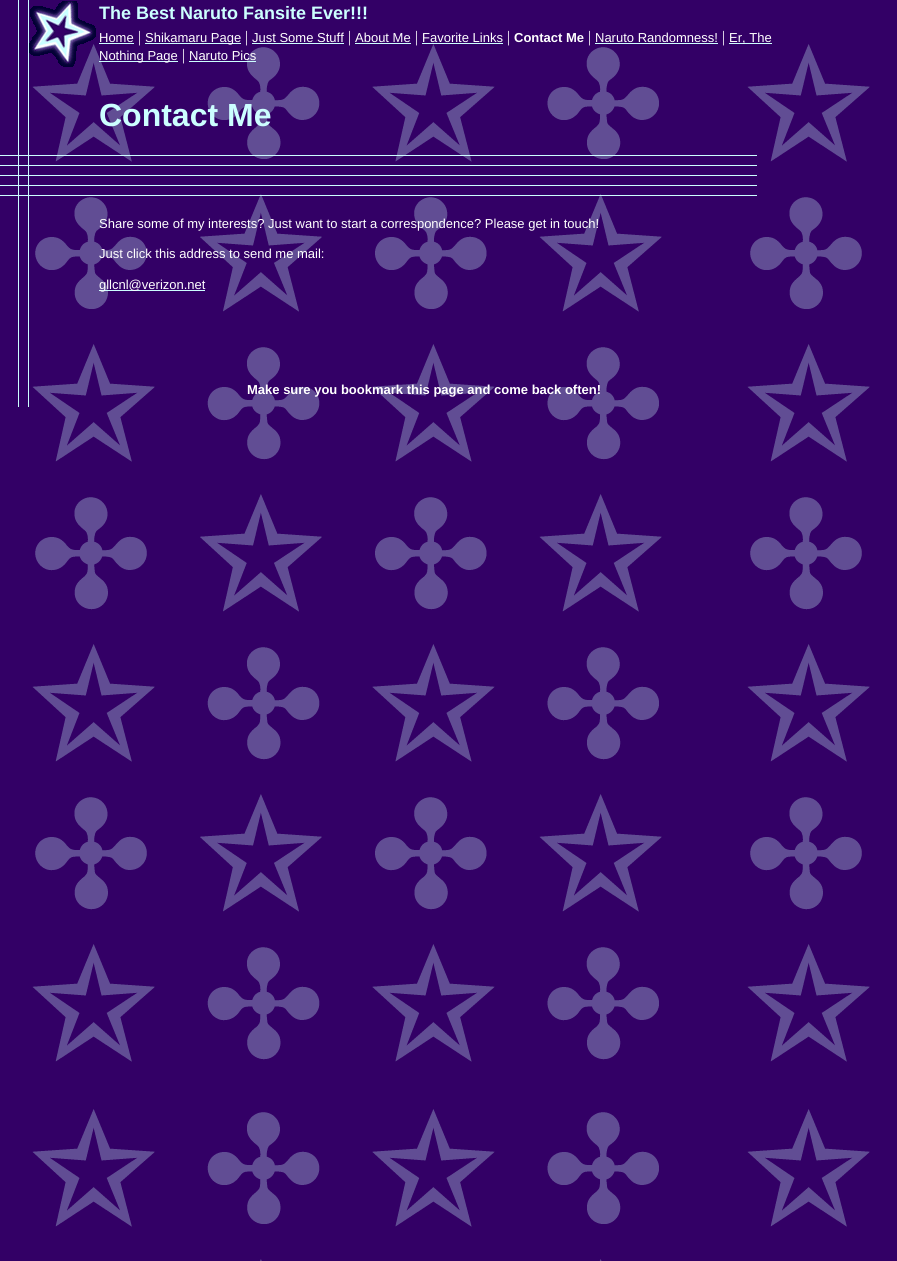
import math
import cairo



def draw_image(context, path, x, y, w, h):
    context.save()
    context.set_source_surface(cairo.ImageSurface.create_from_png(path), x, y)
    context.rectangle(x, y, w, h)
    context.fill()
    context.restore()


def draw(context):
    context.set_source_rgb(1, 1, 1)
    context.paint()
    draw_image(context, "images/1.png", 0, 0, 897, 1261)
    context.set_source_rgb(204 / 255, 1, 1)
    context.rectangle(18, 0, 1, 155)
    context.fill()
    context.rectangle(28, 0, 1, 155)
    context.fill()
    draw_image(context, "images/2.png", 29, 1, 67, 66)
    context.rectangle(99, 43, 35, 1)
    context.fill()
    context.rectangle(145, 43, 96, 1)
    context.fill()
    context.rectangle(252, 43, 92, 1)
    context.fill()
    context.rectangle(355, 43, 56, 1)
    context.fill()
    context.rectangle(422, 43, 81, 1)
    context.fill()
    context.rectangle(595, 43, 123, 1)
    context.fill()
    context.rectangle(729, 43, 43, 1)
    context.fill()
    context.rectangle(99, 61, 79, 1)
    context.fill()
    context.rectangle(189, 61, 67, 1)
    context.fill()
    context.rectangle(0, 155, 757, 1)
    context.fill()
    context.rectangle(18, 156, 1, 9)
    context.fill()
    context.rectangle(28, 156, 1, 9)
    context.fill()
    context.rectangle(0, 165, 757, 1)
    context.fill()
    context.rectangle(18, 166, 1, 9)
    context.fill()
    context.rectangle(28, 166, 1, 9)
    context.fill()
    context.rectangle(0, 175, 757, 1)
    context.fill()
    context.rectangle(18, 176, 1, 9)
    context.fill()
    context.rectangle(28, 176, 1, 9)
    context.fill()
    context.rectangle(0, 185, 757, 1)
    context.fill()
    context.rectangle(18, 186, 1, 9)
    context.fill()
    context.rectangle(28, 186, 1, 9)
    context.fill()
    context.rectangle(0, 195, 757, 1)
    context.fill()
    context.rectangle(18, 196, 1, 211)
    context.fill()
    context.rectangle(28, 196, 1, 211)
    context.fill()
    context.rectangle(99, 290, 106, 1)
    context.fill()
    context.select_font_face("Liberation Sans", cairo.FontSlant.NORMAL, cairo.FontWeight.BOLD)
    context.set_font_size(18)
    context.move_to(99, 19)
    context.show_text("The Best Naruto Fansite Ever!!!")
    context.select_font_face("Liberation Sans")
    context.set_font_size(13)
    context.set_source_rgb(1, 1, 1)
    context.move_to(99, 42)
    context.show_text("Home")
    context.select_font_face("Liberation Serif")
    context.set_font_size(16)
    context.move_to(138, 42)
    context.show_text("|")
    context.select_font_face("Liberation Sans")
    context.set_font_size(13)
    context.move_to(145, 42)
    context.show_text("Shikamaru Page")
    context.select_font_face("Liberation Serif")
    context.set_font_size(16)
    context.move_to(245, 42)
    context.show_text("|")
    context.select_font_face("Liberation Sans")
    context.set_font_size(13)
    context.move_to(252, 42)
    context.show_text("Just Some Stuff")
    context.select_font_face("Liberation Serif")
    context.set_font_size(16)
    context.move_to(348, 42)
    context.show_text("|")
    context.select_font_face("Liberation Sans")
    context.set_font_size(13)
    context.move_to(355, 42)
    context.show_text("About Me")
    context.select_font_face("Liberation Serif")
    context.set_font_size(16)
    context.move_to(415, 42)
    context.show_text("|")
    context.select_font_face("Liberation Sans")
    context.set_font_size(13)
    context.move_to(422, 42)
    context.show_text("Favorite Links")
    context.select_font_face("Liberation Serif")
    context.set_font_size(16)
    context.move_to(507, 42)
    context.show_text("|")
    context.select_font_face("Liberation Sans", cairo.FontSlant.NORMAL, cairo.FontWeight.BOLD)
    context.set_font_size(13)
    context.move_to(514, 42)
    context.show_text("Contact Me")
    context.select_font_face("Liberation Serif")
    context.set_font_size(16)
    context.move_to(588, 42)
    context.show_text("|")
    context.select_font_face("Liberation Sans")
    context.set_font_size(13)
    context.move_to(595, 42)
    context.show_text("Naruto Randomness!")
    context.select_font_face("Liberation Serif")
    context.set_font_size(16)
    context.move_to(722, 42)
    context.show_text("|")
    context.select_font_face("Liberation Sans")
    context.set_font_size(13)
    context.move_to(729, 42)
    context.show_text("Er, The")
    context.move_to(99, 60)
    context.show_text("Nothing Page")
    context.select_font_face("Liberation Serif")
    context.set_font_size(16)
    context.move_to(182, 60)
    context.show_text("|")
    context.select_font_face("Liberation Sans")
    context.set_font_size(13)
    context.move_to(189, 60)
    context.show_text("Naruto Pics")
    context.select_font_face("Liberation Sans", cairo.FontSlant.NORMAL, cairo.FontWeight.BOLD)
    context.set_font_size(32)
    context.set_source_rgb(204 / 255, 1, 1)
    context.move_to(99, 126)
    context.show_text("Contact Me")
    context.select_font_face("Liberation Sans")
    context.set_font_size(13)
    context.set_source_rgb(1, 1, 1)
    context.move_to(99, 228)
    context.show_text("Share some of my interests? Just want to start a correspondence? Please get in touch!")
    context.move_to(99, 258)
    context.show_text("Just click this address to send me mail:")
    context.move_to(99, 289)
    context.show_text("gllcnl@verizon.net")
    context.select_font_face("Liberation Sans", cairo.FontSlant.NORMAL, cairo.FontWeight.BOLD)
    context.move_to(247, 394)
    context.show_text("Make sure you bookmark this page and come back often!")


surface = cairo.ImageSurface(cairo.Format.RGB24, 897, 1261)
context = cairo.Context(surface)
options = cairo.FontOptions()
options.set_hint_metrics(cairo.HintMetrics.OFF)
options.set_hint_style(cairo.HintStyle.NONE)
context.set_font_options(options)
context.set_miter_limit(4)
draw(context)
surface.write_to_png("out.png")
